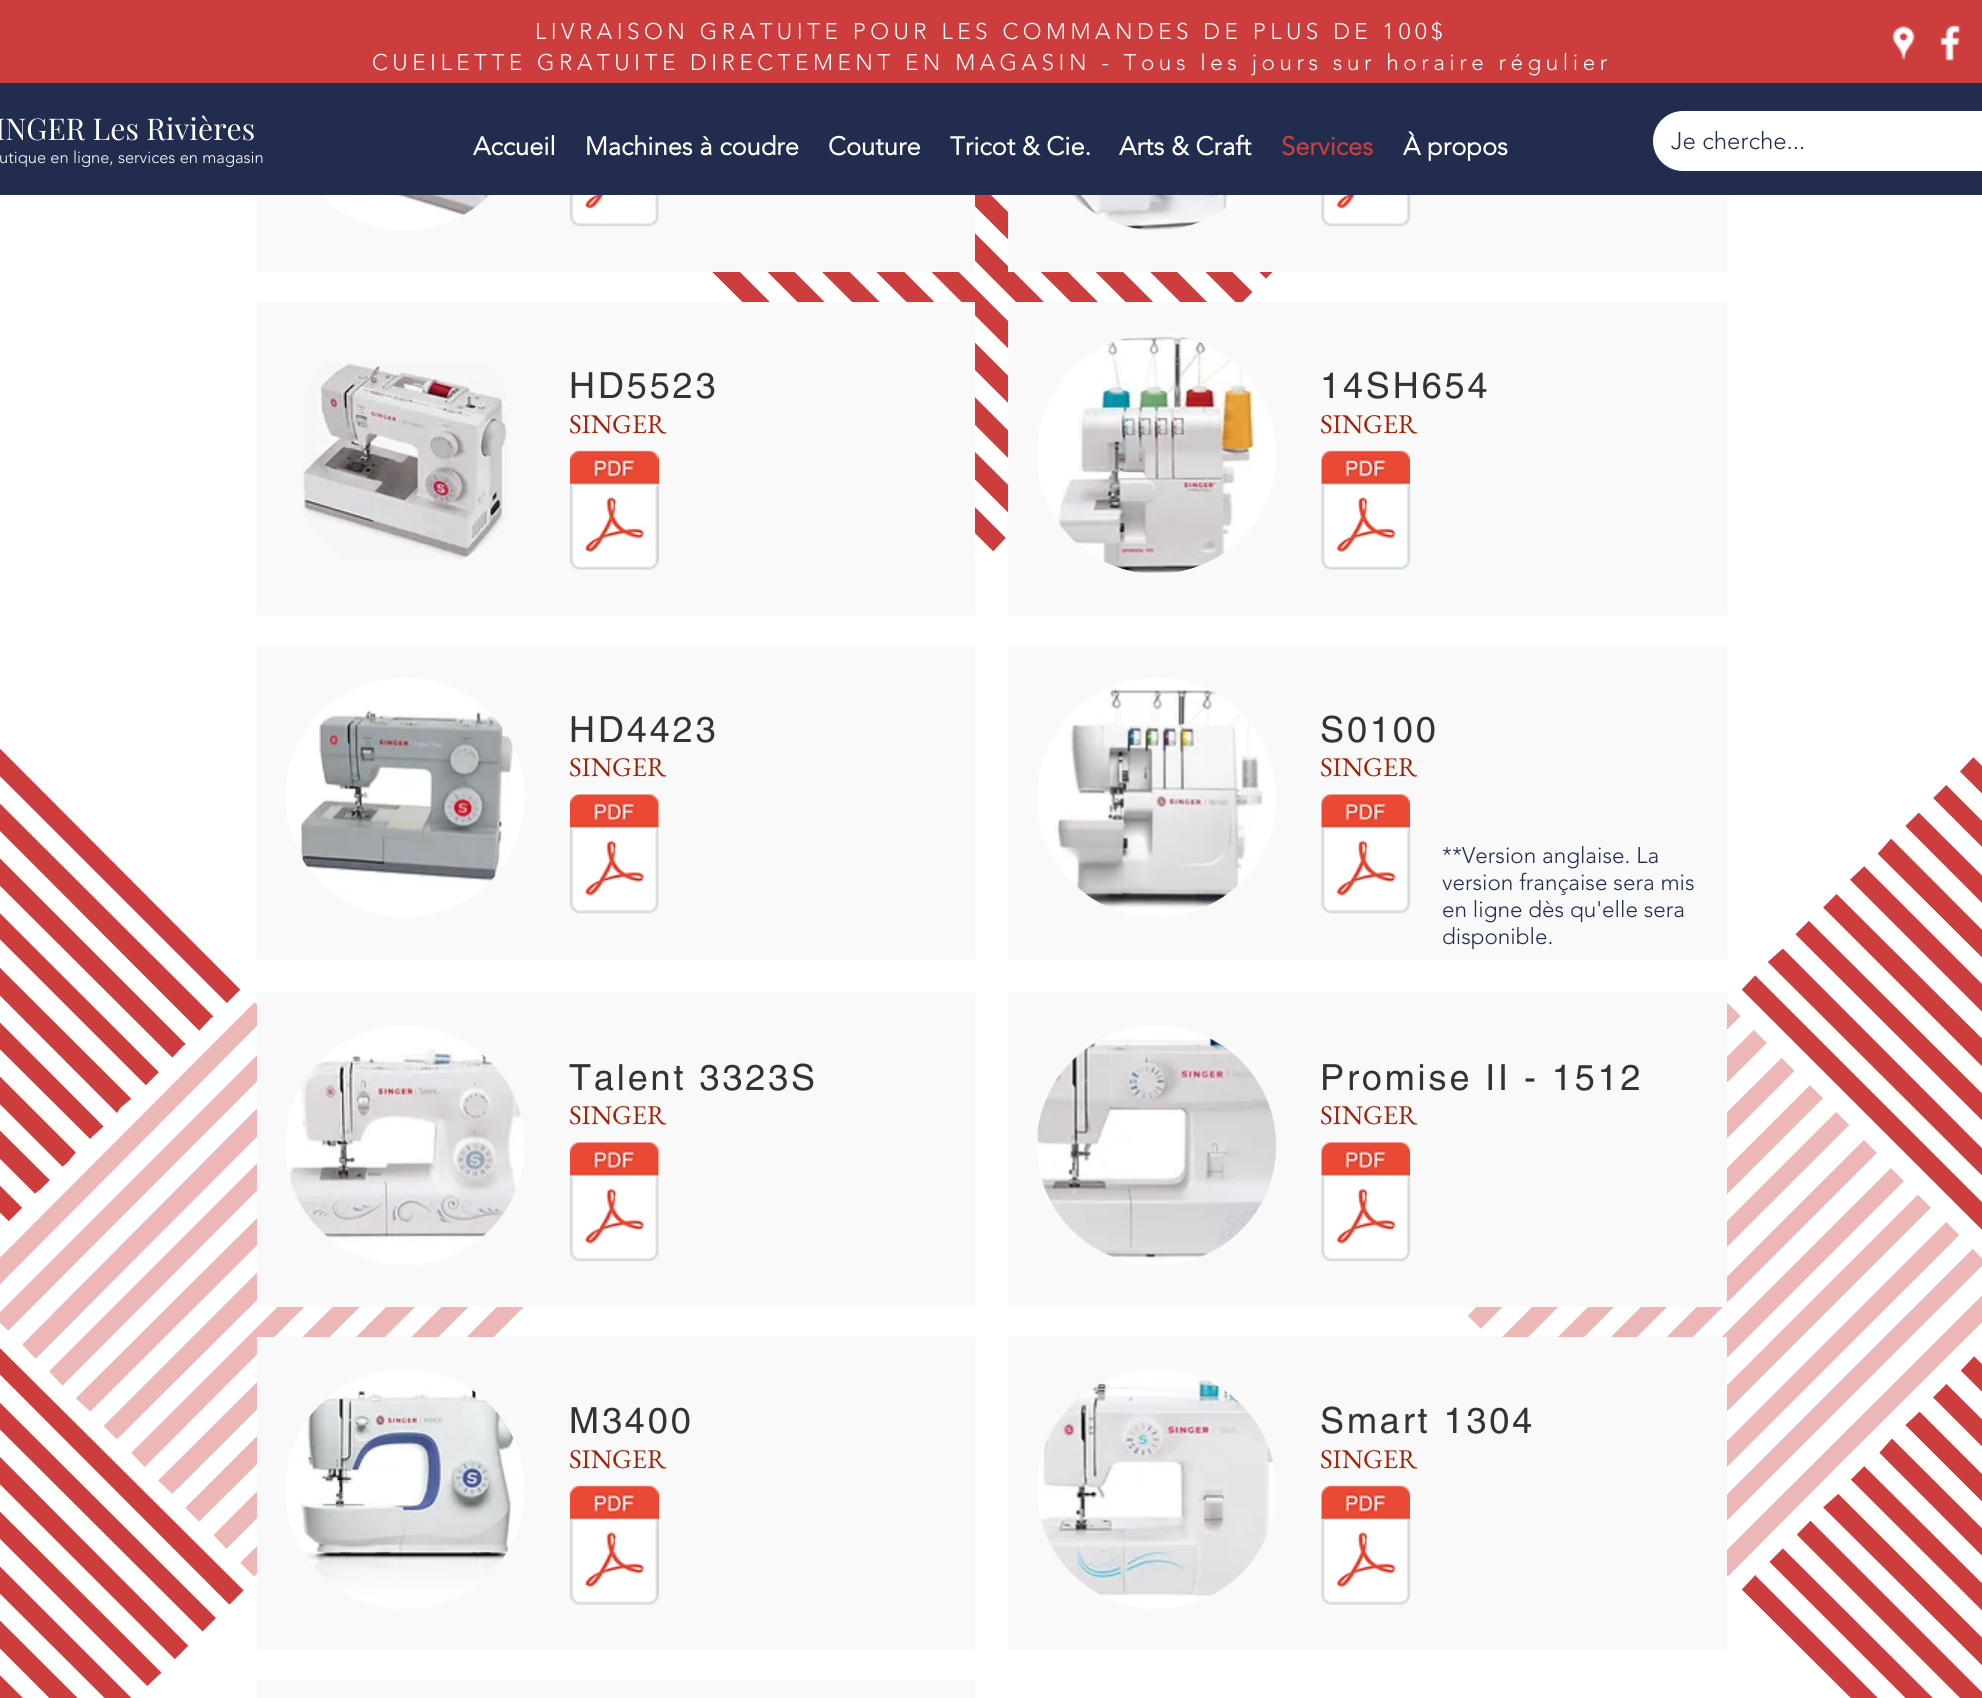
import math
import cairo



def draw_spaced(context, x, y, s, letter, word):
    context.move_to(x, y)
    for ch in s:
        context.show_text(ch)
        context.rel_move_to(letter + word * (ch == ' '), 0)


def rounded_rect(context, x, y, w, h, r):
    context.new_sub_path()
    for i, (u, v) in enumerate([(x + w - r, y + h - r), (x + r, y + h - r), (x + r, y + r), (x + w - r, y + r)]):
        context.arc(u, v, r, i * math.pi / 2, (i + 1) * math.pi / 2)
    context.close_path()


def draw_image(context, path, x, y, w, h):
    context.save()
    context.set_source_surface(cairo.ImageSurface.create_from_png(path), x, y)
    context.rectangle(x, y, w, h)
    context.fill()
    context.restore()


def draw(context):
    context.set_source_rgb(1, 1, 1)
    context.paint()
    context.set_source_rgb(205 / 255, 61 / 255, 61 / 255)
    context.rectangle(0, 0, 1982, 83)
    context.fill()
    draw_image(context, "images/1.png", 1892, 26, 23, 34)
    draw_image(context, "images/2.png", 1940, 24, 21, 38)
    context.set_source_rgb(34 / 255, 44 / 255, 79 / 255)
    context.rectangle(0, 83, 1982, 112)
    context.fill()
    context.set_source_rgb(1, 1, 1)
    rounded_rect(context, 1653, 111, 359, 60, 30)
    context.fill()
    draw_image(context, "images/9.png", 712, 195, 561, 357)
    context.set_source_rgb(249 / 255, 249 / 255, 249 / 255)
    context.rectangle(257, 195, 718, 77)
    context.fill()
    draw_image(context, "images/3.png", 320, 195, 170, 35)
    draw_image(context, "images/4.png", 570, 195, 89, 32)
    context.rectangle(257, 302, 718, 313)
    context.fill()
    draw_image(context, "images/5.png", 303, 363, 204, 198)
    draw_image(context, "images/6.png", 570, 450, 89, 120)
    context.rectangle(257, 645, 718, 314)
    context.fill()
    draw_image(context, "images/7.png", 285, 678, 240, 239)
    draw_image(context, "images/8.png", 570, 794, 89, 120)
    context.rectangle(1008, 195, 719, 77)
    context.fill()
    draw_image(context, "images/10.png", 1071, 195, 171, 36)
    draw_image(context, "images/11.png", 1321, 195, 89, 32)
    context.rectangle(1008, 302, 719, 313)
    context.fill()
    draw_image(context, "images/12.png", 1037, 335, 239, 239)
    draw_image(context, "images/13.png", 1321, 450, 89, 120)
    context.rectangle(1008, 645, 719, 314)
    context.fill()
    draw_image(context, "images/14.png", 1037, 678, 239, 239)
    draw_image(context, "images/15.png", 1321, 794, 89, 120)
    draw_image(context, "images/16.png", 0, 748, 524, 950)
    draw_image(context, "images/17.png", 1467, 757, 515, 941)
    context.rectangle(257, 993, 718, 314)
    context.fill()
    draw_image(context, "images/18.png", 285, 1026, 240, 239)
    draw_image(context, "images/8.png", 570, 1142, 89, 120)
    context.rectangle(257, 1337, 718, 313)
    context.fill()
    draw_image(context, "images/19.png", 285, 1369, 240, 240)
    draw_image(context, "images/6.png", 570, 1485, 89, 120)
    context.rectangle(257, 1680, 718, 18)
    context.fill()
    context.rectangle(1008, 993, 719, 314)
    context.fill()
    draw_image(context, "images/20.png", 1037, 1026, 240, 239)
    draw_image(context, "images/15.png", 1321, 1142, 89, 120)
    context.rectangle(1008, 1337, 719, 313)
    context.fill()
    draw_image(context, "images/21.png", 1037, 1369, 239, 240)
    draw_image(context, "images/13.png", 1321, 1485, 89, 120)
    context.select_font_face("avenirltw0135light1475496 Light")
    context.set_font_size(22.5)
    context.set_source_rgb(1, 1, 1)
    draw_spaced(context, 535, 39, "LIVRAISON GRATUITE POUR LES COMMANDES DE PLUS DE 100$", 4.5, 0)
    draw_spaced(context, 372, 70, "CUEILETTE GRATUITE DIRECTEMENT EN MAGASIN - Tous les jours sur horaire régulier", 4.5, 0)
    context.select_font_face("Playfair Display")
    context.set_font_size(30)
    context.move_to(-5, 140)
    context.show_text("INGER Les Rivières")
    context.select_font_face("avenirltw0135light1475496", cairo.FontSlant.NORMAL, cairo.FontWeight.BOLD)
    context.set_font_size(25.5)
    context.move_to(473, 155)
    context.show_text("Accueil")
    context.move_to(585, 155)
    context.show_text("Machines à coudre")
    context.move_to(828, 155)
    context.show_text("Couture")
    context.move_to(950, 155)
    context.show_text("Tricot & Cie.")
    context.move_to(1119, 155)
    context.show_text("Arts & Craft")
    context.set_source_rgb(205 / 255, 61 / 255, 61 / 255)
    context.move_to(1281, 155)
    context.show_text("Services")
    context.set_source_rgb(1, 1, 1)
    context.move_to(1403, 155)
    context.show_text("À propos")
    context.select_font_face("avenirltw0135light1475496 Light")
    context.set_font_size(24)
    context.set_source_rgb(34 / 255, 44 / 255, 79 / 255)
    context.move_to(1671, 149)
    context.show_text("Je cherche...")
    context.set_font_size(16.5)
    context.set_source_rgb(1, 1, 1)
    context.move_to(-1, 163)
    context.show_text("utique en ligne, services en magasin")
    context.select_font_face("helvetica")
    context.set_font_size(36)
    context.set_source_rgb(51 / 255, 51 / 255, 51 / 255)
    draw_spaced(context, 569, 398, "HD5523", 2.9, 0)
    context.select_font_face("EB Garamond")
    context.set_font_size(27)
    context.set_source_rgb(162 / 255, 35 / 255, 10 / 255)
    context.move_to(569, 433)
    context.show_text("SINGER")
    context.select_font_face("helvetica")
    context.set_font_size(36)
    context.set_source_rgb(51 / 255, 51 / 255, 51 / 255)
    draw_spaced(context, 569, 742, "HD4423", 2.9, 0)
    context.select_font_face("EB Garamond")
    context.set_font_size(27)
    context.set_source_rgb(162 / 255, 35 / 255, 10 / 255)
    context.move_to(569, 776)
    context.show_text("SINGER")
    context.select_font_face("helvetica")
    context.set_font_size(36)
    context.set_source_rgb(51 / 255, 51 / 255, 51 / 255)
    draw_spaced(context, 1320, 398, "14SH654", 2.9, 0)
    context.select_font_face("EB Garamond")
    context.set_font_size(27)
    context.set_source_rgb(162 / 255, 35 / 255, 10 / 255)
    context.move_to(1320, 433)
    context.show_text("SINGER")
    context.select_font_face("helvetica")
    context.set_font_size(36)
    context.set_source_rgb(51 / 255, 51 / 255, 51 / 255)
    draw_spaced(context, 1320, 742, "S0100", 2.9, 0)
    context.select_font_face("EB Garamond")
    context.set_font_size(27)
    context.set_source_rgb(162 / 255, 35 / 255, 10 / 255)
    context.move_to(1320, 776)
    context.show_text("SINGER")
    context.select_font_face("avenirltw0135light1475496 Light")
    context.set_font_size(22.5)
    context.set_source_rgb(34 / 255, 44 / 255, 79 / 255)
    context.move_to(1442, 863)
    context.show_text("**Version anglaise. La")
    context.move_to(1442, 890)
    context.show_text("version française sera mis")
    context.move_to(1442, 917)
    context.show_text("en ligne dès qu'elle sera")
    context.move_to(1442, 944)
    context.show_text("disponible.")
    context.select_font_face("helvetica")
    context.set_font_size(36)
    context.set_source_rgb(51 / 255, 51 / 255, 51 / 255)
    draw_spaced(context, 569, 1090, "Talent 3323S", 2.9, 0)
    context.select_font_face("EB Garamond")
    context.set_font_size(27)
    context.set_source_rgb(162 / 255, 35 / 255, 10 / 255)
    context.move_to(569, 1124)
    context.show_text("SINGER")
    context.select_font_face("helvetica")
    context.set_font_size(36)
    context.set_source_rgb(51 / 255, 51 / 255, 51 / 255)
    draw_spaced(context, 569, 1433, "M3400", 2.9, 0)
    context.select_font_face("EB Garamond")
    context.set_font_size(27)
    context.set_source_rgb(162 / 255, 35 / 255, 10 / 255)
    context.move_to(569, 1468)
    context.show_text("SINGER")
    context.select_font_face("helvetica")
    context.set_font_size(36)
    context.set_source_rgb(51 / 255, 51 / 255, 51 / 255)
    draw_spaced(context, 1320, 1090, "Promise II - 1512", 2.9, 0)
    context.select_font_face("EB Garamond")
    context.set_font_size(27)
    context.set_source_rgb(162 / 255, 35 / 255, 10 / 255)
    context.move_to(1320, 1124)
    context.show_text("SINGER")
    context.select_font_face("helvetica")
    context.set_font_size(36)
    context.set_source_rgb(51 / 255, 51 / 255, 51 / 255)
    draw_spaced(context, 1320, 1433, "Smart 1304", 2.9, 0)
    context.select_font_face("EB Garamond")
    context.set_font_size(27)
    context.set_source_rgb(162 / 255, 35 / 255, 10 / 255)
    context.move_to(1320, 1468)
    context.show_text("SINGER")


surface = cairo.ImageSurface(cairo.Format.RGB24, 1982, 1698)
context = cairo.Context(surface)
options = cairo.FontOptions()
options.set_hint_metrics(cairo.HintMetrics.OFF)
options.set_hint_style(cairo.HintStyle.NONE)
context.set_font_options(options)
context.set_miter_limit(4)
draw(context)
surface.write_to_png("out.png")
